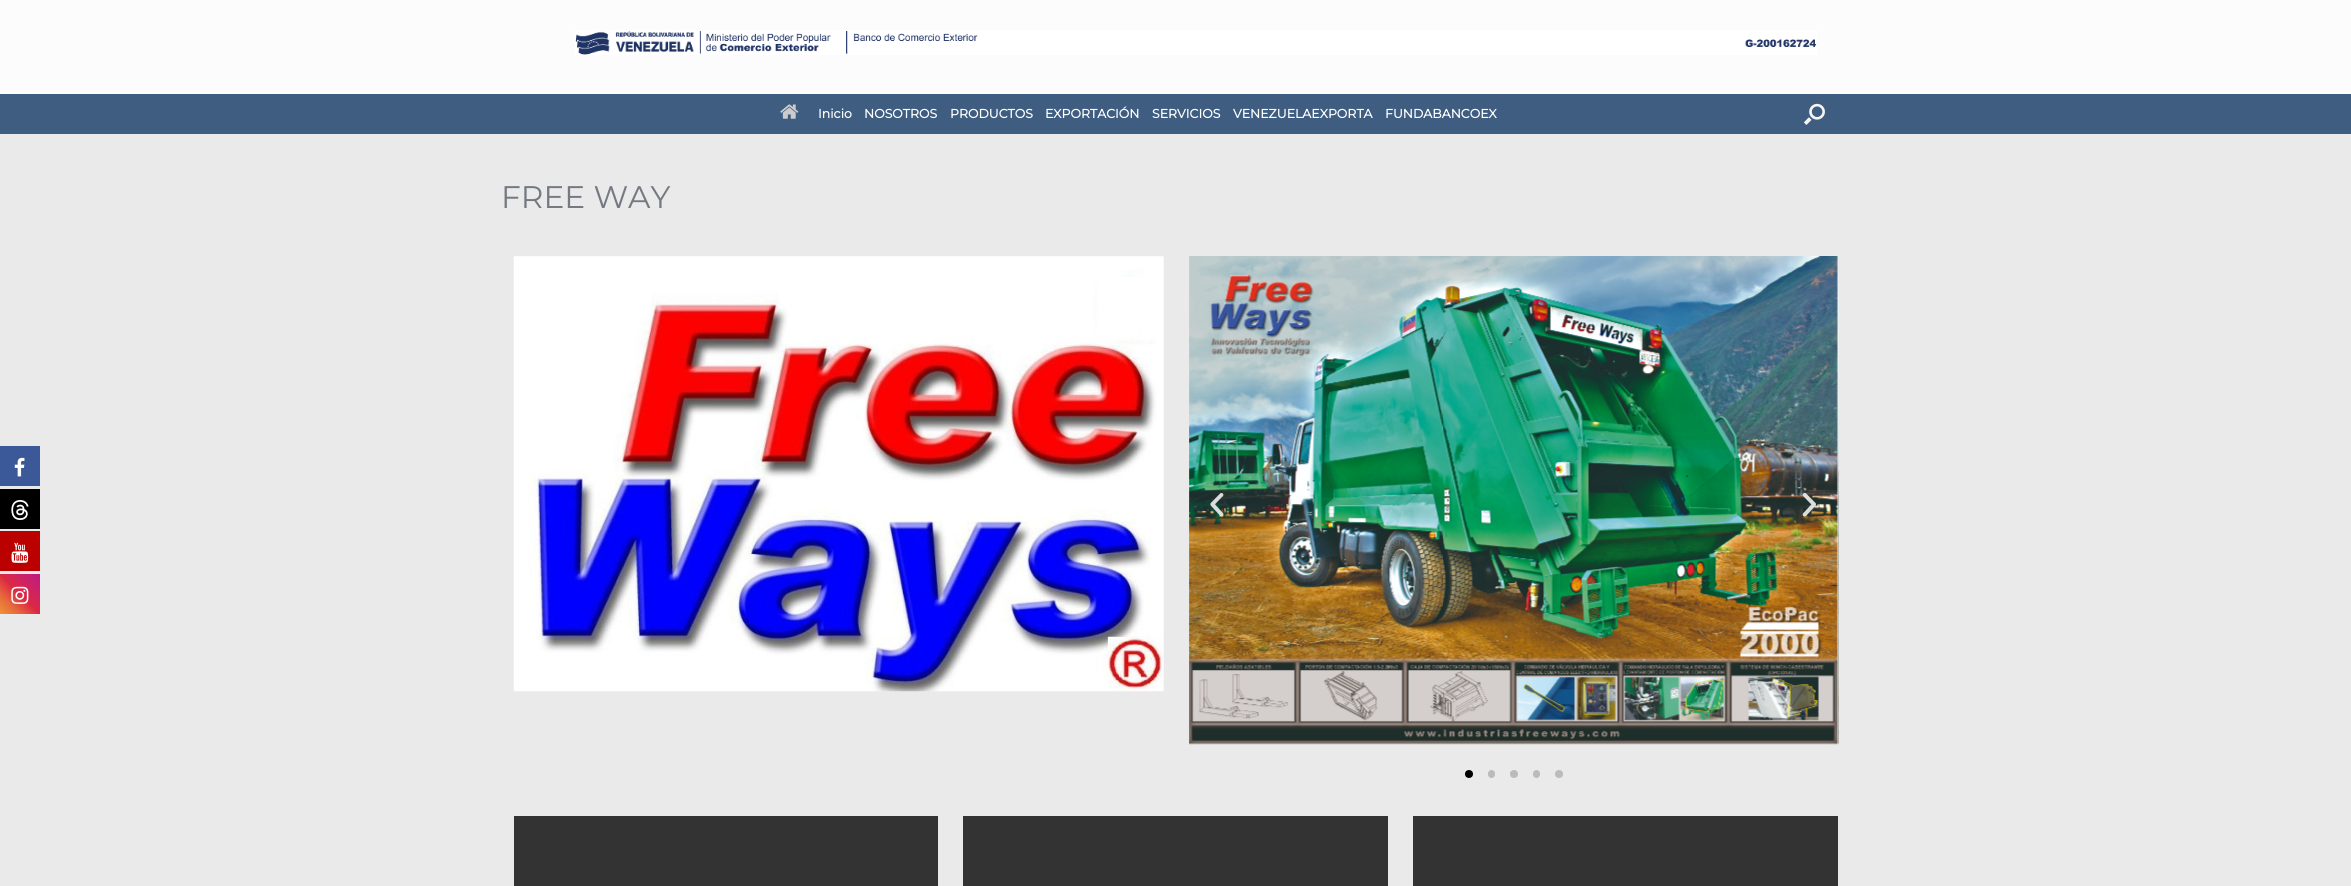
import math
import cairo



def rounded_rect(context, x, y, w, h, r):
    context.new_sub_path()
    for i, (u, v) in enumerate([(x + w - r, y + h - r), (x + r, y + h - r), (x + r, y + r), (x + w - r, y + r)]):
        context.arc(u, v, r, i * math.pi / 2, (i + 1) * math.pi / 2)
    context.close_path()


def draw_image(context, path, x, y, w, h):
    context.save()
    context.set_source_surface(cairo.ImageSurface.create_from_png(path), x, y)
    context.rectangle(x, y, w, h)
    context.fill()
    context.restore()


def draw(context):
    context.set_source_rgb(252 / 255, 252 / 255, 252 / 255)
    context.paint()
    draw_image(context, "images/1.png", 575, 30, 1242, 25)
    context.set_source_rgb(62 / 255, 93 / 255, 129 / 255)
    context.rectangle(0, 94, 2351, 40)
    context.fill()
    draw_image(context, "images/2.png", 780, 104, 19, 15)
    draw_image(context, "images/3.png", 1803, 103, 22, 22)
    context.set_source_rgb(234 / 255, 234 / 255, 234 / 255)
    context.rectangle(0, 134, 2351, 752)
    context.fill()
    draw_image(context, "images/4.png", 513, 256, 651, 436)
    draw_image(context, "images/5.png", 1189, 256, 649, 489)
    draw_image(context, "images/6.png", 1838, 275, 1, 470)
    draw_image(context, "images/7.png", 1210, 493, 14, 24)
    draw_image(context, "images/8.png", 1802, 493, 14, 24)
    context.set_source_rgb(0, 0, 0)
    context.arc(1469, 774, 4, 0, 2 * math.pi)
    context.fill()
    context.set_source_rgb(187 / 255, 187 / 255, 187 / 255)
    rounded_rect(context, 1488, 770, 7, 8, 3.5)
    context.fill()
    context.arc(1514, 774, 4, 0, 2 * math.pi)
    context.fill()
    rounded_rect(context, 1533, 770, 7, 8, 3.5)
    context.fill()
    context.arc(1559, 774, 4, 0, 2 * math.pi)
    context.fill()
    context.set_source_rgb(51 / 255, 51 / 255, 51 / 255)
    context.rectangle(514, 816, 424, 70)
    context.fill()
    context.rectangle(963, 816, 425, 70)
    context.fill()
    context.rectangle(1413, 816, 425, 70)
    context.fill()
    context.set_source_rgb(59 / 255, 89 / 255, 152 / 255)
    context.rectangle(0, 446, 40, 40)
    context.fill()
    draw_image(context, "images/9.png", 14, 457, 11, 20)
    context.set_source_rgb(0, 0, 0)
    context.rectangle(0, 489, 40, 40)
    context.fill()
    draw_image(context, "images/10.png", 11, 500, 18, 20)
    context.set_source_rgb(187 / 255, 0, 0)
    context.rectangle(0, 531, 40, 40)
    context.fill()
    draw_image(context, "images/11.png", 11, 542, 18, 21)
    gradient = cairo.LinearGradient(0, 614, 40, 574)
    gradient.add_color_stop_rgba(0, 240 / 255, 148 / 255, 51 / 255, 1)
    gradient.add_color_stop_rgba(0.25, 230 / 255, 104 / 255, 60 / 255, 1)
    gradient.add_color_stop_rgba(0.5, 220 / 255, 39 / 255, 67 / 255, 1)
    gradient.add_color_stop_rgba(0.75, 204 / 255, 35 / 255, 102 / 255, 1)
    gradient.add_color_stop_rgba(1, 188 / 255, 24 / 255, 136 / 255, 1)
    context.set_source(gradient)
    context.rectangle(0, 574, 40, 40)
    context.fill()
    draw_image(context, "images/12.png", 11, 586, 18, 18)
    context.select_font_face("Montserrat", cairo.FontSlant.NORMAL, cairo.FontWeight.BOLD)
    context.set_font_size(12.5)
    context.set_source_rgb(1, 1, 1)
    context.move_to(818, 118)
    context.show_text("Inicio")
    context.move_to(864, 118)
    context.show_text("NOSOTROS")
    context.move_to(950, 118)
    context.show_text("PRODUCTOS")
    context.move_to(1045, 118)
    context.show_text("EXPORTACIÓN")
    context.move_to(1152, 118)
    context.show_text("SERVICIOS")
    context.move_to(1233, 118)
    context.show_text("VENEZUELAEXPORTA")
    context.move_to(1385, 118)
    context.show_text("FUNDABANCOEX")
    context.select_font_face("Montserrat")
    context.set_font_size(31.25)
    context.set_source_rgb(117 / 255, 122 / 255, 130 / 255)
    context.move_to(501, 208)
    context.show_text("FREE WAY")


surface = cairo.ImageSurface(cairo.Format.RGB24, 2351, 886)
context = cairo.Context(surface)
options = cairo.FontOptions()
options.set_hint_metrics(cairo.HintMetrics.OFF)
options.set_hint_style(cairo.HintStyle.NONE)
context.set_font_options(options)
context.set_miter_limit(4)
draw(context)
surface.write_to_png("out.png")
